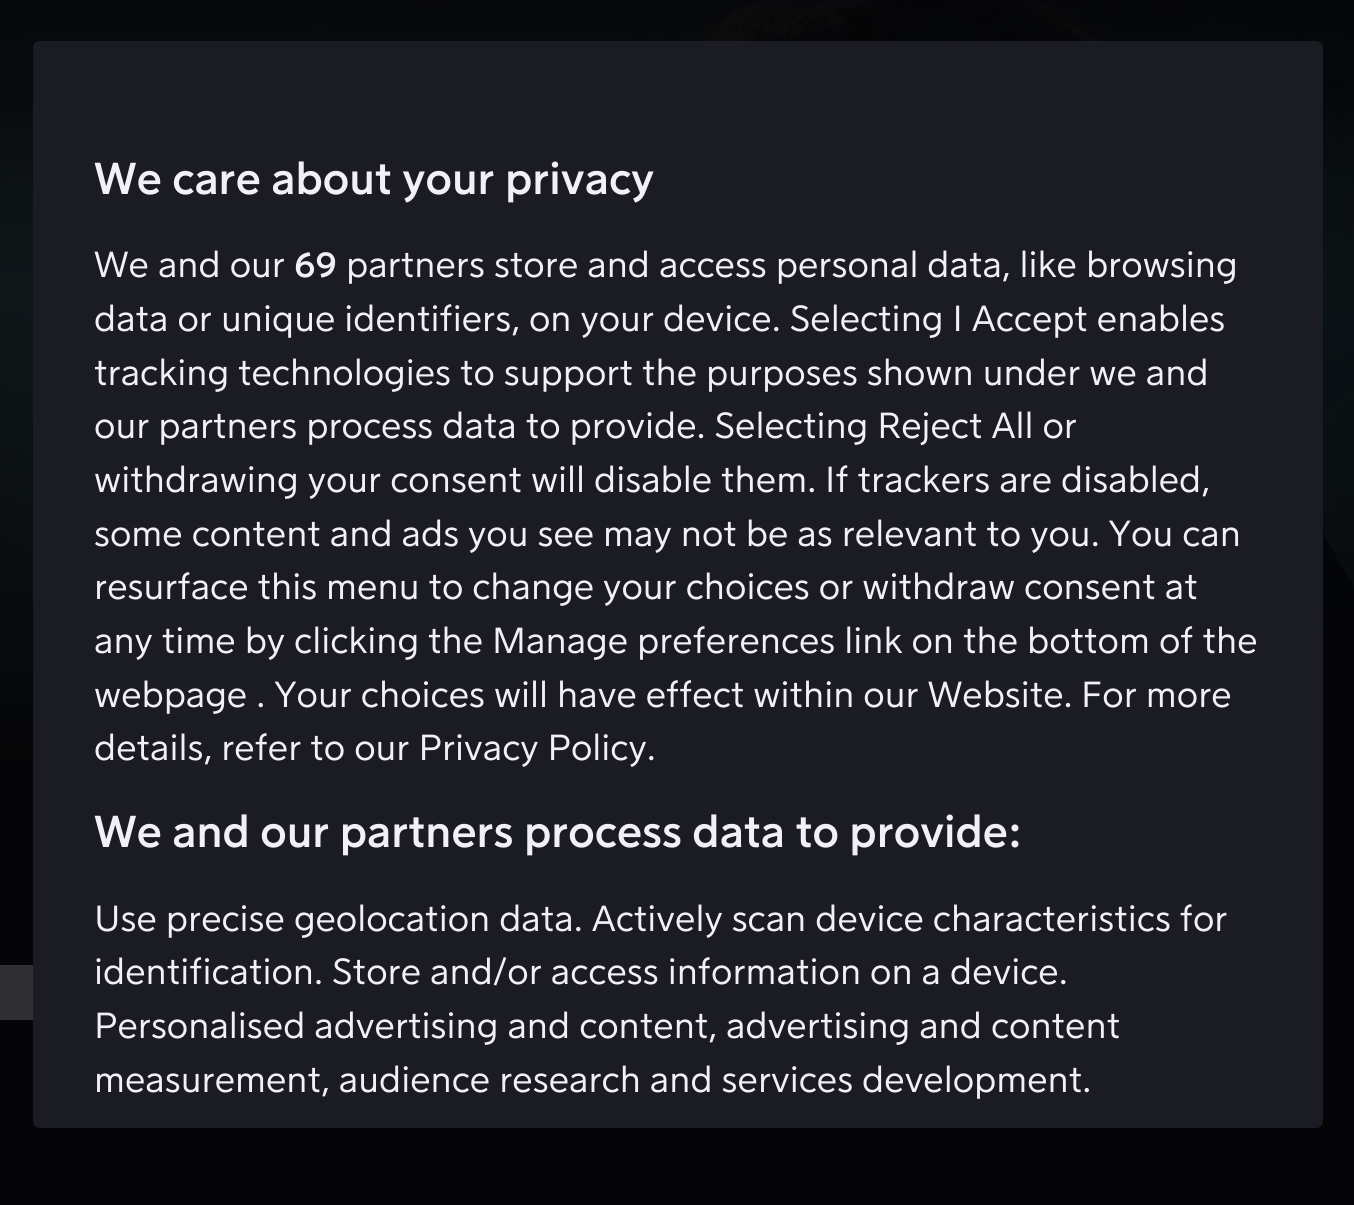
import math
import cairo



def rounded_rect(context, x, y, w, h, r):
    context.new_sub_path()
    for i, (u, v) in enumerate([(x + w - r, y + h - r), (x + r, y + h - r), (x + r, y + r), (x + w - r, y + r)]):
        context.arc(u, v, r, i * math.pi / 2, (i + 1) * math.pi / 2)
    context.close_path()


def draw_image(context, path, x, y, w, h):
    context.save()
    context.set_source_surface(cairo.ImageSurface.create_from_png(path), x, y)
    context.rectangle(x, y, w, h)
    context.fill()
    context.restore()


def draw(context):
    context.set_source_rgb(5 / 255, 5 / 255, 7 / 255)
    context.paint()
    draw_image(context, "images/1.png", 0, 0, 1354, 759)
    context.set_source_rgb(48 / 255, 48 / 255, 50 / 255)
    context.rectangle(0, 965, 33, 55)
    context.fill()
    gradient = cairo.LinearGradient(678, 0, 678, 341)
    gradient.add_color_stop_rgba(0, 5 / 255, 5 / 255, 7 / 255, 0.8)
    gradient.add_color_stop_rgba(0.2, 5 / 255, 5 / 255, 7 / 255, 0.73)
    gradient.add_color_stop_rgba(0.33, 5 / 255, 5 / 255, 7 / 255, 0.62)
    gradient.add_color_stop_rgba(0.47, 5 / 255, 5 / 255, 7 / 255, 0.45)
    gradient.add_color_stop_rgba(0.6, 5 / 255, 5 / 255, 7 / 255, 0.27)
    gradient.add_color_stop_rgba(0.73, 5 / 255, 5 / 255, 7 / 255, 0.12)
    gradient.add_color_stop_rgba(0.87, 5 / 255, 5 / 255, 7 / 255, 0.03)
    gradient.add_color_stop_rgba(1, 5 / 255, 5 / 255, 7 / 255, 0)
    context.set_source(gradient)
    context.rectangle(0, 0, 1354, 272)
    context.fill()
    context.set_source_rgb(27 / 255, 27 / 255, 36 / 255)
    rounded_rect(context, 33, 41, 1290, 1087, 7)
    context.fill()
    context.select_font_face("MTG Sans", cairo.FontSlant.NORMAL, cairo.FontWeight.BOLD)
    context.set_font_size(44)
    context.set_source_rgb(241 / 255, 240 / 255, 250 / 255)
    context.move_to(94, 194)
    context.show_text("We care about your privacy")
    context.select_font_face("MTG Sans")
    context.set_font_size(35.75)
    context.move_to(94, 277)
    context.show_text("We and our")
    context.select_font_face("MTG Sans", cairo.FontSlant.NORMAL, cairo.FontWeight.BOLD)
    context.move_to(294, 277)
    context.show_text("69")
    context.select_font_face("MTG Sans")
    context.move_to(346, 277)
    context.show_text("partners store and access personal data, like browsing")
    context.move_to(94, 331)
    context.show_text("data or unique identifiers, on your device. Selecting I Accept enables")
    context.move_to(94, 385)
    context.show_text("tracking technologies to support the purposes shown under we and")
    context.move_to(94, 438)
    context.show_text("our partners process data to provide. Selecting Reject All or")
    context.move_to(94, 492)
    context.show_text("withdrawing your consent will disable them. If trackers are disabled,")
    context.move_to(94, 546)
    context.show_text("some content and ads you see may not be as relevant to you. You can")
    context.move_to(94, 599)
    context.show_text("resurface this menu to change your choices or withdraw consent at")
    context.move_to(94, 653)
    context.show_text("any time by clicking the Manage preferences link on the bottom of the")
    context.move_to(94, 707)
    context.show_text("webpage . Your choices will have effect within our Website. For more")
    context.move_to(94, 760)
    context.show_text("details, refer to our Privacy Policy.")
    context.select_font_face("MTG Sans", cairo.FontSlant.NORMAL, cairo.FontWeight.BOLD)
    context.set_font_size(44)
    context.move_to(94, 847)
    context.show_text("We and our partners process data to provide:")
    context.select_font_face("MTG Sans")
    context.set_font_size(35.75)
    context.move_to(94, 931)
    context.show_text("Use precise geolocation data. Actively scan device characteristics for")
    context.move_to(94, 984)
    context.show_text("identification. Store and/or access information on a device.")
    context.move_to(94, 1038)
    context.show_text("Personalised advertising and content, advertising and content")
    context.move_to(94, 1092)
    context.show_text("measurement, audience research and services development.")


surface = cairo.ImageSurface(cairo.Format.RGB24, 1354, 1205)
context = cairo.Context(surface)
options = cairo.FontOptions()
options.set_hint_metrics(cairo.HintMetrics.OFF)
options.set_hint_style(cairo.HintStyle.NONE)
context.set_font_options(options)
context.set_miter_limit(4)
draw(context)
surface.write_to_png("out.png")
